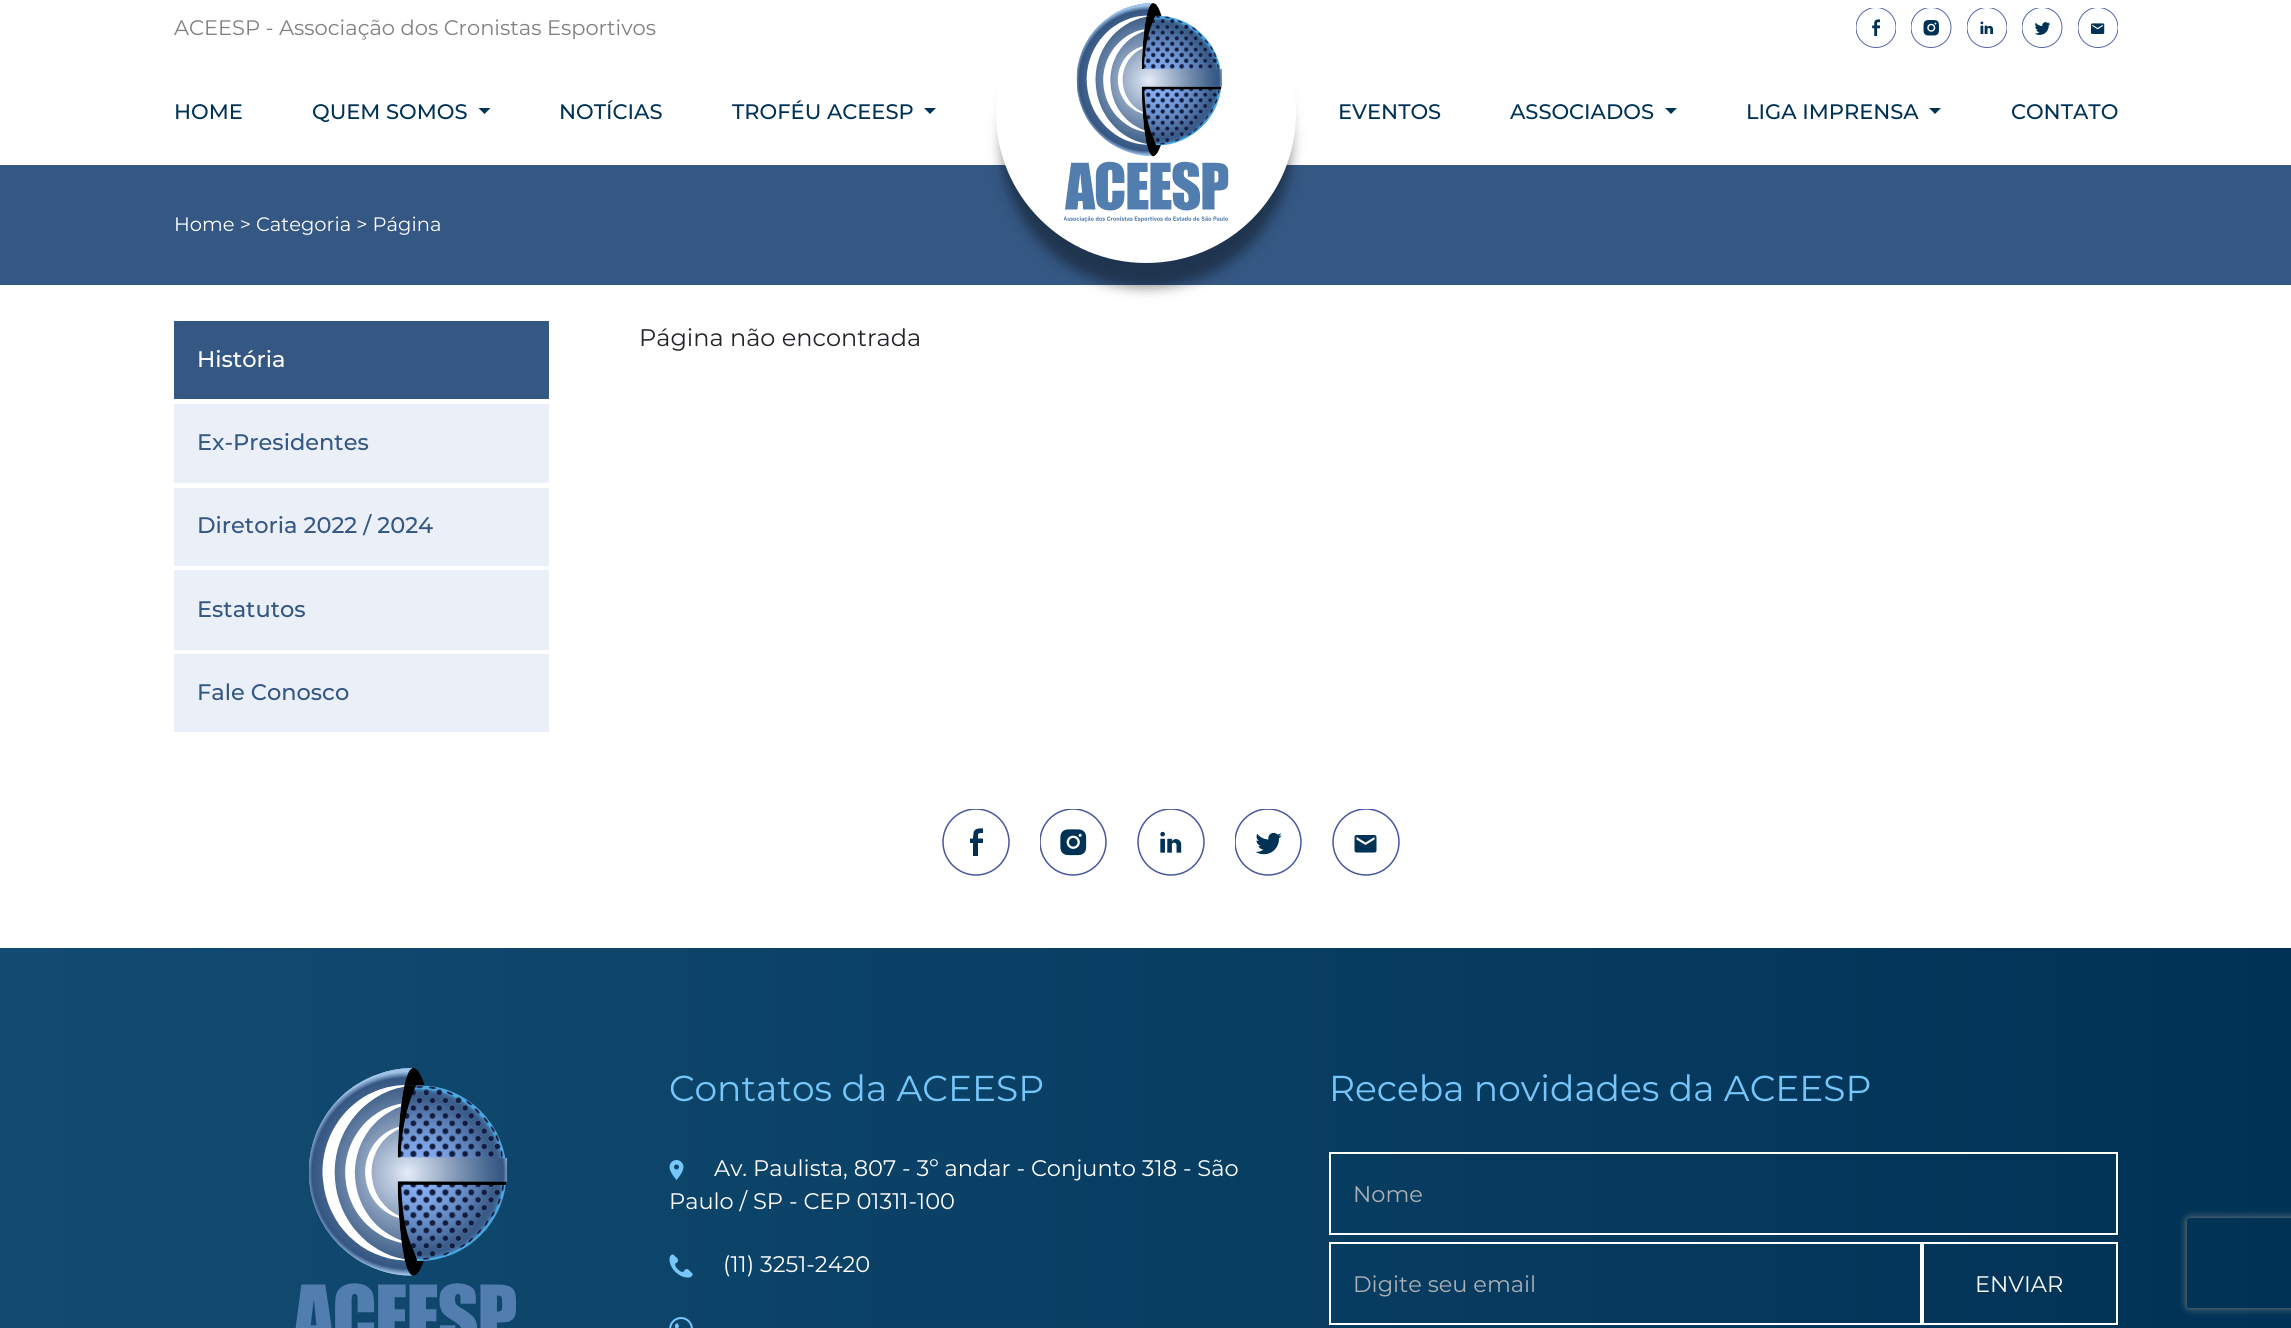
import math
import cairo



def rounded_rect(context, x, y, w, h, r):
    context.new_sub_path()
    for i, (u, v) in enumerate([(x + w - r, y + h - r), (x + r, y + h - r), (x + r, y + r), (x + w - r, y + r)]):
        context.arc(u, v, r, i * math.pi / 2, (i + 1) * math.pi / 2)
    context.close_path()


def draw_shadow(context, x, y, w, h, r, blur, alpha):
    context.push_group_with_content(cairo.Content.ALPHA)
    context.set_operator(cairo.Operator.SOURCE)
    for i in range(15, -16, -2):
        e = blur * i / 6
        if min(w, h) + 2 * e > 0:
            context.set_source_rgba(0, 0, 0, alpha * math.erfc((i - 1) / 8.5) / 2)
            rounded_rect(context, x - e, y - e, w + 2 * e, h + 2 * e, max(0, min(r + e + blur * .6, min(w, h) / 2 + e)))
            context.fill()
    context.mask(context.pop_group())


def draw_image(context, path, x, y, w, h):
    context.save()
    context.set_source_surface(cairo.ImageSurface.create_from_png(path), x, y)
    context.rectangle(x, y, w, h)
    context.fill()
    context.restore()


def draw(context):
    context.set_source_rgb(1, 1, 1)
    context.paint()
    draw_image(context, "images/1.png", 1856, 8, 40, 40)
    draw_image(context, "images/2.png", 1911, 8, 41, 40)
    draw_image(context, "images/3.png", 1967, 8, 40, 40)
    draw_image(context, "images/4.png", 2022, 8, 41, 40)
    draw_image(context, "images/5.png", 2078, 8, 40, 40)
    context.set_source_rgb(0, 50 / 255, 85 / 255)
    context.new_path()
    context.move_to(478.5, 108)
    context.line_to(490.5, 108)
    context.line_to(484.5, 114)
    context.close_path()
    context.fill()
    context.new_path()
    context.move_to(924, 108)
    context.line_to(936, 108)
    context.line_to(930, 114)
    context.close_path()
    context.fill()
    context.set_source_rgb(52 / 255, 87 / 255, 131 / 255)
    context.rectangle(0, 165, 2291, 120)
    context.fill()
    context.set_source_rgb(0, 0, 0)
    draw_shadow(context, 1001, -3, 291, 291, 145.5, 6, 0.4)
    context.set_source_rgb(1, 1, 1)
    context.arc(1146, 113, 150, 0, 2 * math.pi)
    context.fill()
    draw_image(context, "images/6.png", 1064, 3, 165, 219)
    context.set_source_rgb(0, 50 / 255, 85 / 255)
    context.new_path()
    context.move_to(1665, 108)
    context.line_to(1677, 108)
    context.line_to(1671, 114)
    context.close_path()
    context.fill()
    context.new_path()
    context.move_to(1929, 108)
    context.line_to(1941, 108)
    context.line_to(1935, 114)
    context.close_path()
    context.fill()
    context.set_source_rgb(52 / 255, 87 / 255, 131 / 255)
    context.rectangle(174, 321, 375, 78)
    context.fill()
    context.set_source_rgb(234 / 255, 239 / 255, 248 / 255)
    context.rectangle(174, 404, 375, 79)
    context.fill()
    context.rectangle(174, 488, 375, 78)
    context.fill()
    context.rectangle(174, 570, 375, 80)
    context.fill()
    context.rectangle(174, 654, 375, 78)
    context.fill()
    context.save()
    context.rectangle(942, 809, 68, 67)
    context.clip()
    context.arc(976, 842, 33, 0, 2 * math.pi)
    context.set_source_rgb(69 / 255, 87 / 255, 158 / 255)
    context.set_line_width(1.5)
    context.stroke()
    context.restore()
    context.set_source_rgb(0, 50 / 255, 85 / 255)
    context.new_path()
    context.move_to(973, 856)
    context.line_to(973, 843)
    context.line_to(970, 843)
    context.line_to(970, 838.5)
    context.line_to(973, 838.5)
    context.line_to(973.5, 833)
    context.curve_to(974, 828.5, 979, 828, 983, 828.5)
    context.line_to(983, 833)
    context.curve_to(977.5, 833, 978, 833, 978, 838.5)
    context.line_to(983, 838.5)
    context.line_to(983, 843)
    context.line_to(978, 843)
    context.line_to(978, 856)
    context.close_path()
    context.fill()
    draw_image(context, "images/7.png", 1040, 809, 67, 67)
    draw_image(context, "images/8.png", 1137, 809, 68, 67)
    draw_image(context, "images/9.png", 1235, 809, 67, 67)
    context.save()
    context.rectangle(1332, 809, 68, 67)
    context.clip()
    context.arc(1366, 842, 33, 0, 2 * math.pi)
    context.set_source_rgb(69 / 255, 87 / 255, 158 / 255)
    context.set_line_width(1.5)
    context.stroke()
    context.restore()
    context.new_path()
    context.move_to(1374.5, 835)
    context.line_to(1356.5, 835)
    context.curve_to(1355.5, 835, 1354.5, 836, 1354.5, 837)
    context.line_to(1354.5, 850.5)
    context.curve_to(1354.5, 851.5, 1355.5, 852.5, 1356.5, 852.5)
    context.line_to(1374.5, 852.5)
    context.curve_to(1375.5, 852.5, 1376.5, 851.5, 1376.5, 850.5)
    context.line_to(1376.5, 837)
    context.curve_to(1376.5, 836, 1375.5, 835, 1374.5, 835)
    context.close_path()
    context.move_to(1374.5, 839.5)
    context.line_to(1365.5, 845)
    context.line_to(1356.5, 839.5)
    context.line_to(1356.5, 837)
    context.line_to(1365.5, 842.5)
    context.line_to(1374.5, 837)
    context.close_path()
    context.fill()
    gradient = cairo.LinearGradient(0, 1253, 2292, 1253)
    gradient.add_color_stop_rgba(0, 18 / 255, 75 / 255, 114 / 255, 1)
    gradient.add_color_stop_rgba(1, 0, 50 / 255, 85 / 255, 1)
    context.set_source(gradient)
    context.rectangle(0, 948, 2291, 380)
    context.fill()
    draw_image(context, "images/10.png", 295, 1068, 221, 260)
    draw_image(context, "images/11.png", 669, 1160, 15, 20)
    draw_image(context, "images/12.png", 669, 1254, 24, 24)
    draw_image(context, "images/13.png", 669, 1317, 24, 11)
    context.rectangle(1330, 1153, 787, 81)
    context.set_source_rgb(1, 1, 1)
    context.stroke()
    context.rectangle(1330, 1243, 591, 81)
    context.stroke()
    context.rectangle(1923, 1243, 194, 81)
    context.stroke()
    context.save()
    context.set_fill_rule(cairo.FillRule.EVEN_ODD)
    context.new_path()
    context.move_to(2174, 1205)
    context.line_to(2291, 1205)
    context.line_to(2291, 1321)
    context.line_to(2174, 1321)
    context.close_path()
    context.move_to(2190, 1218)
    context.line_to(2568, 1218)
    context.curve_to(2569.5, 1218, 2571, 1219.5, 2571, 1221)
    context.line_to(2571, 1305)
    context.curve_to(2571, 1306.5, 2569.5, 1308, 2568, 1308)
    context.line_to(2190, 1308)
    context.curve_to(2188.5, 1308, 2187, 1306.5, 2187, 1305)
    context.line_to(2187, 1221)
    context.curve_to(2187, 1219.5, 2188.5, 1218, 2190, 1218)
    context.close_path()
    context.clip()
    context.set_source_rgb(128 / 255, 128 / 255, 128 / 255)
    draw_shadow(context, 2187, 1218, 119, 90, 3, 4, 1)
    context.restore()
    context.select_font_face("Montserrat")
    context.set_font_size(21)
    context.set_source_rgb(128 / 255, 128 / 255, 128 / 255)
    context.move_to(174, 35)
    context.show_text("ACEESP - Associação dos Cronistas Esportivos")
    context.select_font_face("Montserrat Medium")
    context.set_source_rgb(0, 50 / 255, 85 / 255)
    context.move_to(174, 119)
    context.show_text("HOME")
    context.move_to(312, 119)
    context.show_text("QUEM SOMOS")
    context.move_to(559, 119)
    context.show_text("NOTÍCIAS")
    context.move_to(732, 119)
    context.show_text("TROFÉU ACEESP")
    context.move_to(1338, 119)
    context.show_text("EVENTOS")
    context.move_to(1510, 119)
    context.show_text("ASSOCIADOS")
    context.move_to(1746, 119)
    context.show_text("LIGA IMPRENSA")
    context.move_to(2011, 119)
    context.show_text("CONTATO")
    context.select_font_face("Montserrat")
    context.set_font_size(19.5)
    context.set_source_rgb(1, 1, 1)
    context.move_to(174, 231)
    context.show_text("Home > Categoria > Página")
    context.set_font_size(24)
    context.set_source_rgb(33 / 255, 37 / 255, 41 / 255)
    context.move_to(639, 346)
    context.show_text("Página não encontrada")
    context.select_font_face("Montserrat Medium")
    context.set_font_size(22.5)
    context.set_source_rgb(1, 1, 1)
    context.move_to(197, 367)
    context.show_text("História")
    context.set_source_rgb(52 / 255, 87 / 255, 131 / 255)
    context.move_to(197, 450)
    context.show_text("Ex-Presidentes")
    context.move_to(197, 533)
    context.show_text("Diretoria 2022 / 2024")
    context.move_to(197, 617)
    context.show_text("Estatutos")
    context.move_to(197, 700)
    context.show_text("Fale Conosco")
    context.select_font_face("Montserrat")
    context.set_font_size(36)
    context.set_source_rgb(118 / 255, 198 / 255, 249 / 255)
    context.move_to(669, 1101)
    context.show_text("Contatos da ACEESP")
    context.set_font_size(22.5)
    context.set_source_rgb(1, 1, 1)
    context.move_to(714, 1176)
    context.show_text("Av. Paulista, 807 - 3º andar - Conjunto 318 - São")
    context.move_to(669, 1209)
    context.show_text("Paulo / SP - CEP 01311-100")
    context.move_to(723, 1272)
    context.show_text("(11) 3251-2420")
    context.set_font_size(36)
    context.set_source_rgb(118 / 255, 198 / 255, 249 / 255)
    context.move_to(1329, 1101)
    context.show_text("Receba novidades da ACEESP")
    context.set_font_size(22.5)
    context.set_source_rgb(171 / 255, 175 / 255, 181 / 255)
    context.move_to(1353, 1202)
    context.show_text("Nome")
    context.move_to(1353, 1292)
    context.show_text("Digite seu email")
    context.set_source_rgb(1, 1, 1)
    context.move_to(1975, 1292)
    context.show_text("ENVIAR")


surface = cairo.ImageSurface(cairo.Format.RGB24, 2291, 1328)
context = cairo.Context(surface)
options = cairo.FontOptions()
options.set_hint_metrics(cairo.HintMetrics.OFF)
options.set_hint_style(cairo.HintStyle.NONE)
context.set_font_options(options)
context.set_miter_limit(4)
draw(context)
surface.write_to_png("out.png")
